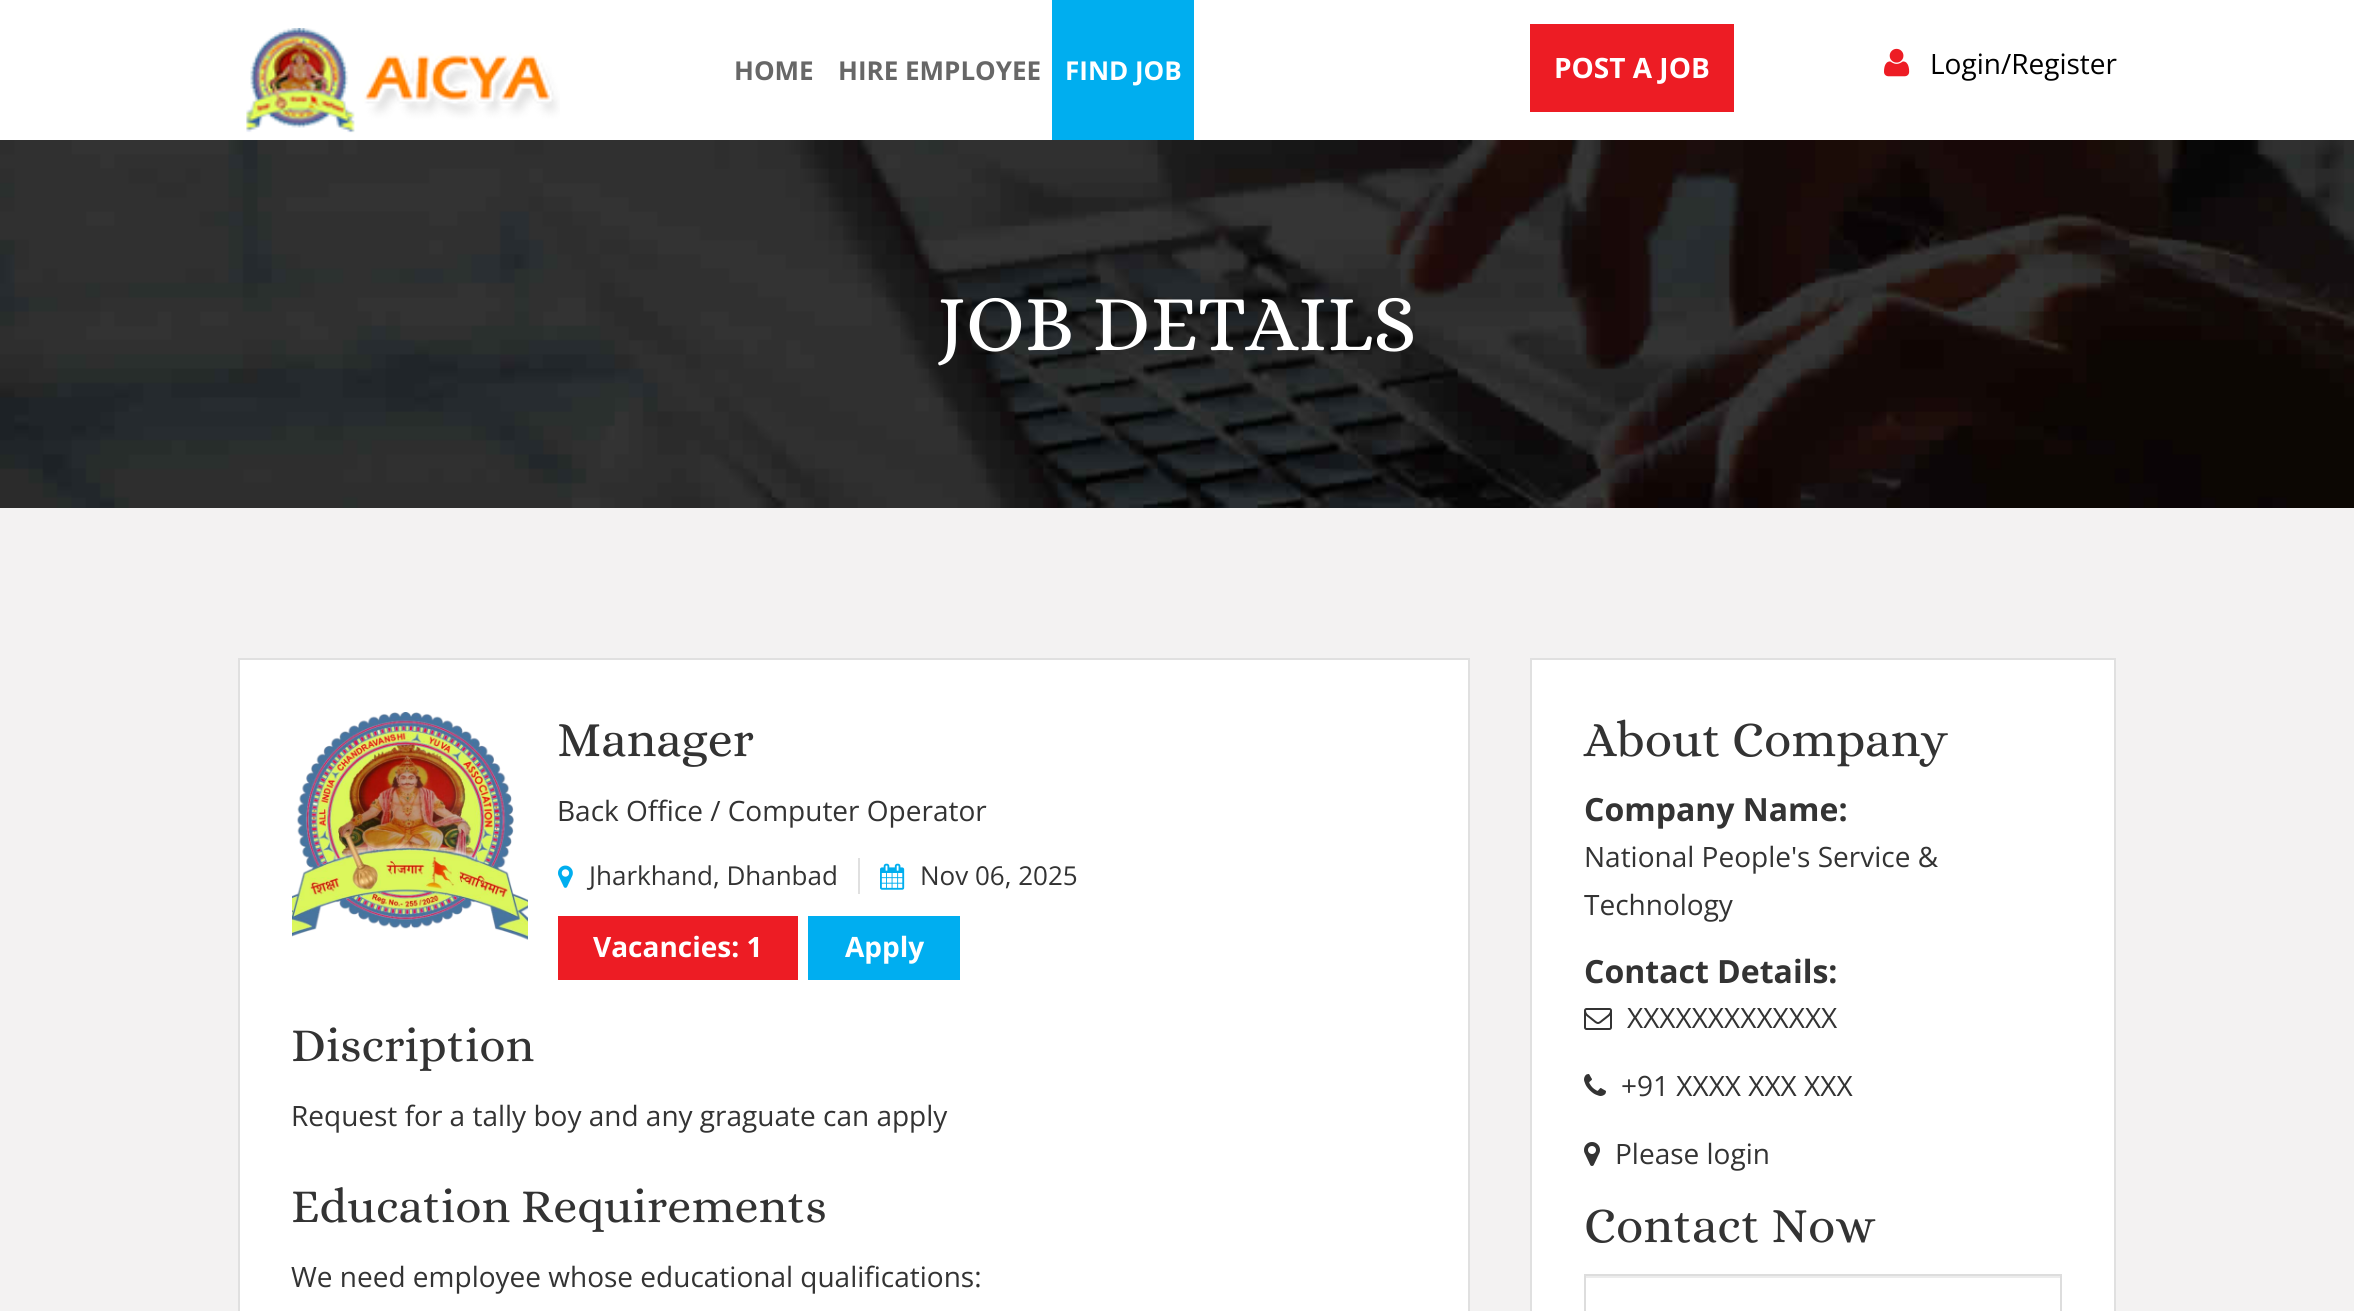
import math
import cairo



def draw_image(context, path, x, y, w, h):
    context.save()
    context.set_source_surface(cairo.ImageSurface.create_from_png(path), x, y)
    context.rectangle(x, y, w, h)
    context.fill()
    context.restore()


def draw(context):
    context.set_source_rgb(1, 1, 1)
    context.paint()
    draw_image(context, "images/1.png", 246, 28, 314, 105)
    context.set_source_rgb(0, 174 / 255, 239 / 255)
    context.rectangle(1052, 0, 142, 140)
    context.fill()
    context.set_source_rgb(237 / 255, 28 / 255, 36 / 255)
    context.rectangle(1530, 24, 204, 88)
    context.fill()
    draw_image(context, "images/2.png", 1884, 48, 26, 29)
    draw_image(context, "images/3.png", 0, 140, 2354, 368)
    context.set_source_rgb(243 / 255, 242 / 255, 242 / 255)
    context.rectangle(0, 508, 2354, 803)
    context.fill()
    context.set_source_rgb(1, 1, 1)
    context.rectangle(239, 659, 1230, 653)
    context.fill_preserve()
    context.set_source_rgb(224 / 255, 224 / 255, 224 / 255)
    context.stroke()
    draw_image(context, "images/4.png", 292, 712, 236, 228)
    draw_image(context, "images/5.png", 558, 865, 15, 23)
    context.rectangle(858, 858, 2, 36)
    context.fill()
    draw_image(context, "images/6.png", 880, 863, 25, 27)
    context.set_source_rgb(237 / 255, 28 / 255, 36 / 255)
    context.rectangle(558, 916, 240, 64)
    context.fill()
    context.set_source_rgb(0, 174 / 255, 240 / 255)
    context.rectangle(808, 916, 152, 64)
    context.fill()
    context.set_source_rgb(1, 1, 1)
    context.rectangle(1531, 659, 584, 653)
    context.fill_preserve()
    context.set_source_rgb(224 / 255, 224 / 255, 224 / 255)
    context.stroke()
    draw_image(context, "images/7.png", 1584, 1008, 28, 22)
    draw_image(context, "images/8.png", 1584, 1074, 22, 22)
    draw_image(context, "images/9.png", 1584, 1142, 16, 24)
    context.set_source_rgb(236 / 255, 236 / 255, 236 / 255)
    context.rectangle(1586, 1276, 474, 2)
    context.fill()
    context.rectangle(1585, 1275, 476, 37)
    context.set_source_rgb(221 / 255, 221 / 255, 221 / 255)
    context.stroke()
    context.select_font_face("Open Sans", cairo.FontSlant.NORMAL, cairo.FontWeight.BOLD)
    context.set_font_size(26)
    context.set_source_rgb(103 / 255, 103 / 255, 103 / 255)
    context.move_to(734, 80)
    context.show_text("HOME")
    context.move_to(838, 80)
    context.show_text("HIRE EMPLOYEE")
    context.set_source_rgb(1, 1, 1)
    context.move_to(1065, 80)
    context.show_text("FIND JOB")
    context.set_font_size(28)
    context.move_to(1554, 78)
    context.show_text("POST A JOB")
    context.select_font_face("Open Sans")
    context.set_source_rgb(0, 0, 0)
    context.move_to(1930, 74)
    context.show_text("Login/Register")
    context.select_font_face("Alice")
    context.set_font_size(80)
    context.set_source_rgb(1, 1, 1)
    context.move_to(937, 350)
    context.show_text("JOB DETAILS")
    context.set_font_size(50)
    context.set_source_rgb(51 / 255, 51 / 255, 51 / 255)
    context.move_to(557, 756)
    context.show_text("Manager")
    context.select_font_face("Open Sans")
    context.set_font_size(28)
    context.move_to(557, 821)
    context.show_text("Back Office / Computer Operator")
    context.set_font_size(26)
    context.move_to(589, 885)
    context.show_text("Jharkhand, Dhanbad")
    context.move_to(920, 885)
    context.show_text("Nov 06, 2025")
    context.select_font_face("Open Sans", cairo.FontSlant.NORMAL, cairo.FontWeight.BOLD)
    context.set_font_size(28)
    context.set_source_rgb(1, 1, 1)
    context.move_to(593, 957)
    context.show_text("Vacancies: 1")
    context.move_to(845, 957)
    context.show_text("Apply")
    context.select_font_face("Alice")
    context.set_font_size(48)
    context.set_source_rgb(51 / 255, 51 / 255, 51 / 255)
    context.move_to(291, 1061)
    context.show_text("Discription")
    context.select_font_face("Open Sans")
    context.set_font_size(28)
    context.move_to(291, 1126)
    context.show_text("Request for a tally boy and any graguate can apply")
    context.select_font_face("Alice")
    context.set_font_size(48)
    context.move_to(291, 1222)
    context.show_text("Education Requirements")
    context.select_font_face("Open Sans")
    context.set_font_size(28)
    context.move_to(291, 1287)
    context.show_text("We need employee whose educational qualifications:")
    context.select_font_face("Alice")
    context.set_font_size(50)
    context.move_to(1584, 756)
    context.show_text("About Company")
    context.select_font_face("Open Sans", cairo.FontSlant.NORMAL, cairo.FontWeight.BOLD)
    context.set_font_size(32)
    context.move_to(1584, 821)
    context.show_text("Company Name:")
    context.select_font_face("Open Sans")
    context.set_font_size(28)
    context.move_to(1584, 867)
    context.show_text("National People's Service &")
    context.move_to(1584, 915)
    context.show_text("Technology")
    context.select_font_face("Open Sans", cairo.FontSlant.NORMAL, cairo.FontWeight.BOLD)
    context.set_font_size(32)
    context.move_to(1584, 983)
    context.show_text("Contact Details:")
    context.select_font_face("Open Sans")
    context.set_font_size(28)
    context.move_to(1627, 1028)
    context.show_text("XXXXXXXXXXXXX")
    context.move_to(1621, 1096)
    context.show_text("+91 XXXX XXX XXX")
    context.move_to(1615, 1164)
    context.show_text("Please login")
    context.select_font_face("Alice")
    context.set_font_size(50)
    context.move_to(1584, 1242)
    context.show_text("Contact Now")


surface = cairo.ImageSurface(cairo.Format.RGB24, 2354, 1311)
context = cairo.Context(surface)
options = cairo.FontOptions()
options.set_hint_metrics(cairo.HintMetrics.OFF)
options.set_hint_style(cairo.HintStyle.NONE)
context.set_font_options(options)
context.set_miter_limit(4)
draw(context)
surface.write_to_png("out.png")
